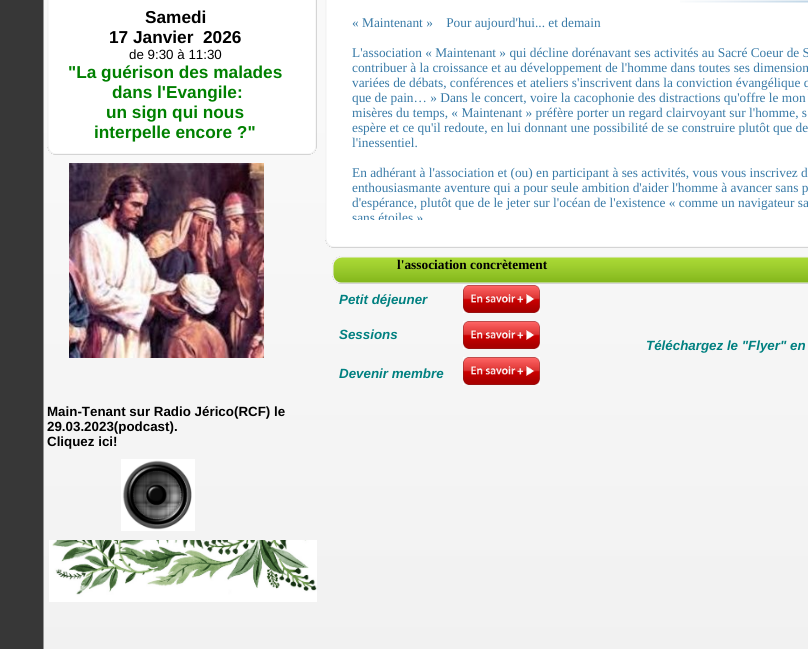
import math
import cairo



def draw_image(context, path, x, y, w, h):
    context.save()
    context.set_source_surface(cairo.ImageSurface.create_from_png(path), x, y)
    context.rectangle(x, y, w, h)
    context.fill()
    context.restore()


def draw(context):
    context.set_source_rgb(55 / 255, 55 / 255, 55 / 255)
    context.paint()
    draw_image(context, "images/1.png", 43, 0, 765, 649)
    draw_image(context, "images/2.png", 47, 0, 270, 155)
    draw_image(context, "images/3.png", 325, 0, 483, 248)
    draw_image(context, "images/4.png", 680, 0, 128, 3)
    draw_image(context, "images/5.png", 69, 163, 195, 195)
    draw_image(context, "images/6.png", 332, 256, 476, 28)
    draw_image(context, "images/7.png", 463, 285, 77, 28)
    draw_image(context, "images/8.png", 463, 321, 77, 28)
    draw_image(context, "images/9.png", 463, 357, 77, 28)
    draw_image(context, "images/10.png", 121, 459, 74, 72)
    draw_image(context, "images/11.png", 49, 540, 268, 62)
    context.select_font_face("Liberation Sans", cairo.FontSlant.NORMAL, cairo.FontWeight.BOLD)
    context.set_font_size(17.25)
    context.set_source_rgb(0, 0, 0)
    context.move_to(145, 23)
    context.show_text("Samedi")
    context.move_to(109, 43)
    context.show_text("17 Janvier  2026")
    context.select_font_face("Liberation Sans")
    context.set_font_size(13.35)
    context.move_to(129, 59)
    context.show_text("de 9:30 à 11:30")
    context.select_font_face("Liberation Sans", cairo.FontSlant.NORMAL, cairo.FontWeight.BOLD)
    context.set_font_size(17.25)
    context.set_source_rgb(0, 128 / 255, 0)
    context.move_to(68, 78)
    context.show_text("\"La guérison des malades")
    context.move_to(112, 98)
    context.show_text("dans l'Evangile:")
    context.move_to(106, 118)
    context.show_text("un sign qui nous")
    context.move_to(94, 138)
    context.show_text("interpelle encore ?\"")
    context.select_font_face("Liberation Serif")
    context.set_font_size(13.35)
    context.set_source_rgb(56 / 255, 122 / 255, 167 / 255)
    context.move_to(352, 27)
    context.show_text("« Maintenant »    Pour aujourd'hui... et demain")
    context.move_to(352, 57)
    context.show_text("L'association « Maintenant » qui décline dorénavant ses activités au Sacré Coeur de S")
    context.move_to(352, 72)
    context.show_text("contribuer à la croissance et au développement de l'homme dans toutes ses dimension")
    context.move_to(352, 87)
    context.show_text("variées de débats, conférences et ateliers s'inscrivent dans la conviction évangélique q")
    context.move_to(352, 102)
    context.show_text("que de pain… » Dans le concert, voire la cacophonie des distractions qu'offre le mon")
    context.move_to(352, 117)
    context.show_text("misères du temps, « Maintenant » préfère porter un regard clairvoyant sur l'homme, s")
    context.move_to(352, 132)
    context.show_text("espère et ce qu'il redoute, en lui donnant une possibilité de se construire plutôt que de")
    context.move_to(352, 147)
    context.show_text("l'inessentiel.")
    context.move_to(352, 177)
    context.show_text("En adhérant à l'association et (ou) en participant à ses activités, vous vous inscrivez d")
    context.move_to(352, 192)
    context.show_text("enthousiasmante aventure qui a pour seule ambition d'aider l'homme à avancer sans p")
    context.move_to(352, 207)
    context.show_text("d'espérance, plutôt que de le jeter sur l'océan de l'existence « comme un navigateur sa")
    context.save()
    context.rectangle(352, 15, 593, 205)
    context.clip()
    context.move_to(352, 222)
    context.show_text("sans étoiles »")
    context.restore()
    context.select_font_face("Liberation Serif", cairo.FontSlant.NORMAL, cairo.FontWeight.BOLD)
    context.set_source_rgb(0, 0, 0)
    context.move_to(397, 269)
    context.show_text("l'association concrètement")
    context.select_font_face("Liberation Sans", cairo.FontSlant.ITALIC, cairo.FontWeight.BOLD)
    context.set_source_rgb(0, 128 / 255, 128 / 255)
    context.move_to(339, 304)
    context.show_text("Petit déjeuner")
    context.move_to(339, 339)
    context.show_text("Sessions")
    context.move_to(646, 350)
    context.show_text("Téléchargez le \"Flyer\" en")
    context.move_to(339, 378)
    context.show_text("Devenir membre")
    context.select_font_face("Liberation Sans", cairo.FontSlant.NORMAL, cairo.FontWeight.BOLD)
    context.set_source_rgb(0, 0, 0)
    context.move_to(47, 416)
    context.show_text("Main-Tenant sur Radio Jérico(RCF) le")
    context.move_to(47, 431)
    context.show_text("29.03.2023(podcast).")
    context.move_to(47, 446)
    context.show_text("Cliquez ici!")


surface = cairo.ImageSurface(cairo.Format.RGB24, 808, 649)
context = cairo.Context(surface)
options = cairo.FontOptions()
options.set_hint_metrics(cairo.HintMetrics.OFF)
options.set_hint_style(cairo.HintStyle.NONE)
context.set_font_options(options)
context.set_miter_limit(4)
draw(context)
surface.write_to_png("out.png")
